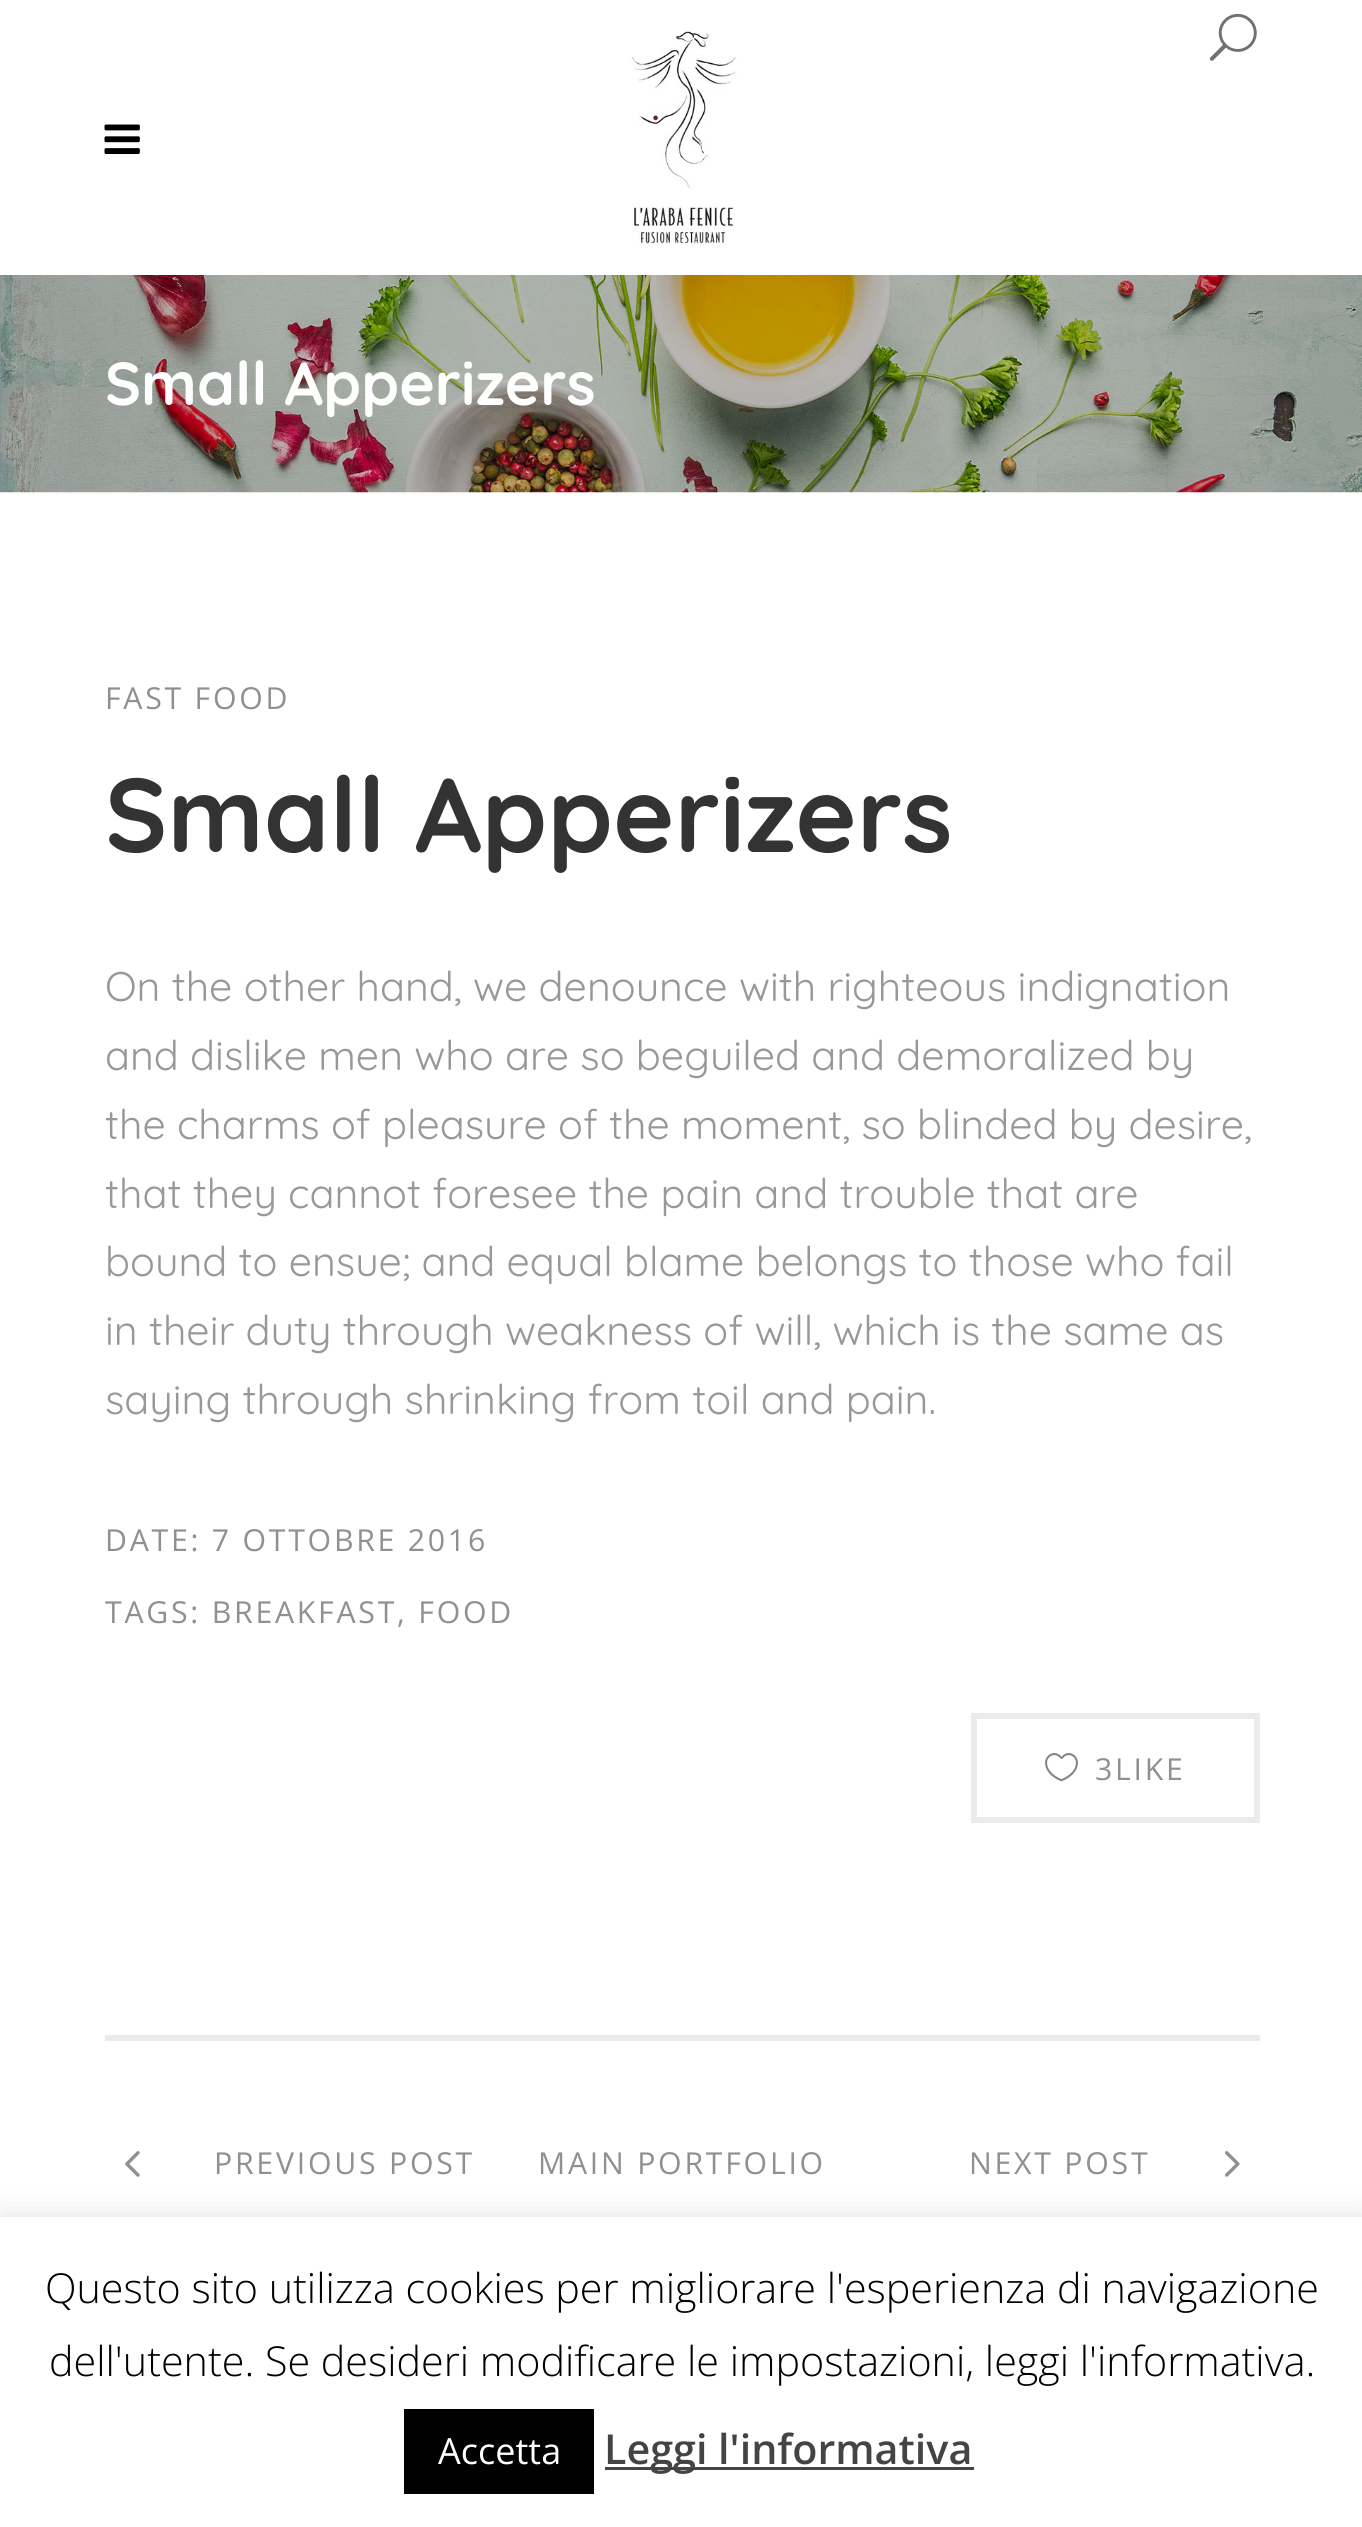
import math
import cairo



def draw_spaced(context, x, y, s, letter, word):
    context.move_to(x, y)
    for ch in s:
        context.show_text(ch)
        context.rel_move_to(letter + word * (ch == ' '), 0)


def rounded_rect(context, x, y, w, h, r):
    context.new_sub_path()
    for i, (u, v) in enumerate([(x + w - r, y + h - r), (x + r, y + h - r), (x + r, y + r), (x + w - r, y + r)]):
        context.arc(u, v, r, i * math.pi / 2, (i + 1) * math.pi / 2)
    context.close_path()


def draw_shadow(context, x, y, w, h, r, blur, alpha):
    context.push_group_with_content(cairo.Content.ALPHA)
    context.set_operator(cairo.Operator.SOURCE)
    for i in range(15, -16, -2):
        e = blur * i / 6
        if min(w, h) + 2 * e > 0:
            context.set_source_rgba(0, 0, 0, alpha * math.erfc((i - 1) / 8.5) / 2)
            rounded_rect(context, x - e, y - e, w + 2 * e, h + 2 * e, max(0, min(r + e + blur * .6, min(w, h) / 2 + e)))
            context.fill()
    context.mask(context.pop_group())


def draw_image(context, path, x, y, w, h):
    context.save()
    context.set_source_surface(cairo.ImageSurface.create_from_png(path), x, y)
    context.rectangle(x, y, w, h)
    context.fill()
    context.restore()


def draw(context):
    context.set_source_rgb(1, 1, 1)
    context.paint()
    draw_image(context, "images/1.png", 104, 124, 36, 30)
    draw_image(context, "images/2.png", 630, 31, 108, 214)
    draw_image(context, "images/3.png", 1209, 13, 48, 48)
    draw_image(context, "images/4.png", 0, 275, 1362, 218)
    context.rectangle(974, 1716, 283, 104)
    context.set_source_rgb(235 / 255, 235 / 255, 235 / 255)
    context.set_line_width(6)
    context.stroke()
    draw_image(context, "images/5.png", 1045, 1753, 33, 29)
    context.rectangle(105, 2035, 1155, 6)
    context.fill()
    draw_image(context, "images/6.png", 125, 2151, 15, 26)
    draw_image(context, "images/7.png", 1225, 2151, 15, 26)
    context.set_source_rgb(172 / 255, 171 / 255, 171 / 255)
    draw_shadow(context, 0, 2214, 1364, 311, 0, 14, 0.3)
    context.set_source_rgb(1, 1, 1)
    context.rectangle(0, 2217, 1362, 310)
    context.fill()
    context.set_source_rgb(0, 0, 0)
    context.rectangle(404, 2409, 190, 85)
    context.fill()
    context.set_source_rgb(68 / 255, 68 / 255, 68 / 255)
    context.rectangle(605, 2467, 369, 3)
    context.fill()
    context.select_font_face("Quicksand", cairo.FontSlant.NORMAL, cairo.FontWeight.BOLD)
    context.set_font_size(60.5)
    context.set_source_rgb(1, 1, 1)
    context.move_to(105, 405)
    context.show_text("Small Apperizers")
    context.select_font_face("Open Sans")
    context.set_font_size(30.25)
    context.set_source_rgb(144 / 255, 144 / 255, 144 / 255)
    draw_spaced(context, 105, 709, "FAST FOOD", 2.75, 0)
    context.select_font_face("Quicksand", cairo.FontSlant.NORMAL, cairo.FontWeight.BOLD)
    context.set_font_size(104.5)
    context.set_source_rgb(51 / 255, 51 / 255, 51 / 255)
    context.move_to(105, 852)
    context.show_text("Small Apperizers")
    context.select_font_face("Quicksand")
    context.set_font_size(41.25)
    context.set_source_rgb(152 / 255, 152 / 255, 152 / 255)
    context.move_to(105, 1001)
    context.show_text("On the other hand, we denounce with righteous indignation")
    context.move_to(105, 1070)
    context.show_text("and dislike men who are so beguiled and demoralized by")
    context.move_to(105, 1139)
    context.show_text("the charms of pleasure of the moment, so blinded by desire,")
    context.move_to(105, 1208)
    context.show_text("that they cannot foresee the pain and trouble that are")
    context.move_to(105, 1276)
    context.show_text("bound to ensue; and equal blame belongs to those who fail")
    context.move_to(105, 1345)
    context.show_text("in their duty through weakness of will, which is the same as")
    context.move_to(105, 1414)
    context.show_text("saying through shrinking from toil and pain.")
    context.select_font_face("Open Sans")
    context.set_font_size(30.25)
    context.set_source_rgb(144 / 255, 144 / 255, 144 / 255)
    draw_spaced(context, 105, 1551, "DATE: 7 OTTOBRE 2016", 2.75, 0)
    draw_spaced(context, 105, 1623, "TAGS: BREAKFAST, FOOD", 2.75, 0)
    draw_spaced(context, 1095, 1780, "3LIKE", 2.75, 0)
    draw_spaced(context, 214, 2174, "PREVIOUS POST", 2.75, 0)
    draw_spaced(context, 538, 2174, "MAIN PORTFOLIO", 2.75, 0)
    draw_spaced(context, 969, 2174, "NEXT POST", 2.75, 0)
    context.select_font_face("Open Sans Light")
    context.set_font_size(41.25)
    context.set_source_rgb(0, 0, 0)
    context.move_to(45, 2303)
    context.show_text("Questo sito utilizza cookies per migliorare l'esperienza di navigazione")
    context.move_to(49, 2376)
    context.show_text("dell'utente. Se desideri modificare le impostazioni, leggi l'informativa.")
    context.select_font_face("Open Sans")
    context.set_font_size(36)
    context.set_source_rgb(1, 1, 1)
    context.move_to(438, 2464)
    context.show_text("Accetta")
    context.select_font_face("Open Sans SemiBold")
    context.set_font_size(41.25)
    context.set_source_rgb(68 / 255, 68 / 255, 68 / 255)
    context.move_to(604, 2464)
    context.show_text("Leggi l'informativa")


surface = cairo.ImageSurface(cairo.Format.RGB24, 1362, 2527)
context = cairo.Context(surface)
options = cairo.FontOptions()
options.set_hint_metrics(cairo.HintMetrics.OFF)
options.set_hint_style(cairo.HintStyle.NONE)
context.set_font_options(options)
context.set_miter_limit(4)
draw(context)
surface.write_to_png("out.png")
